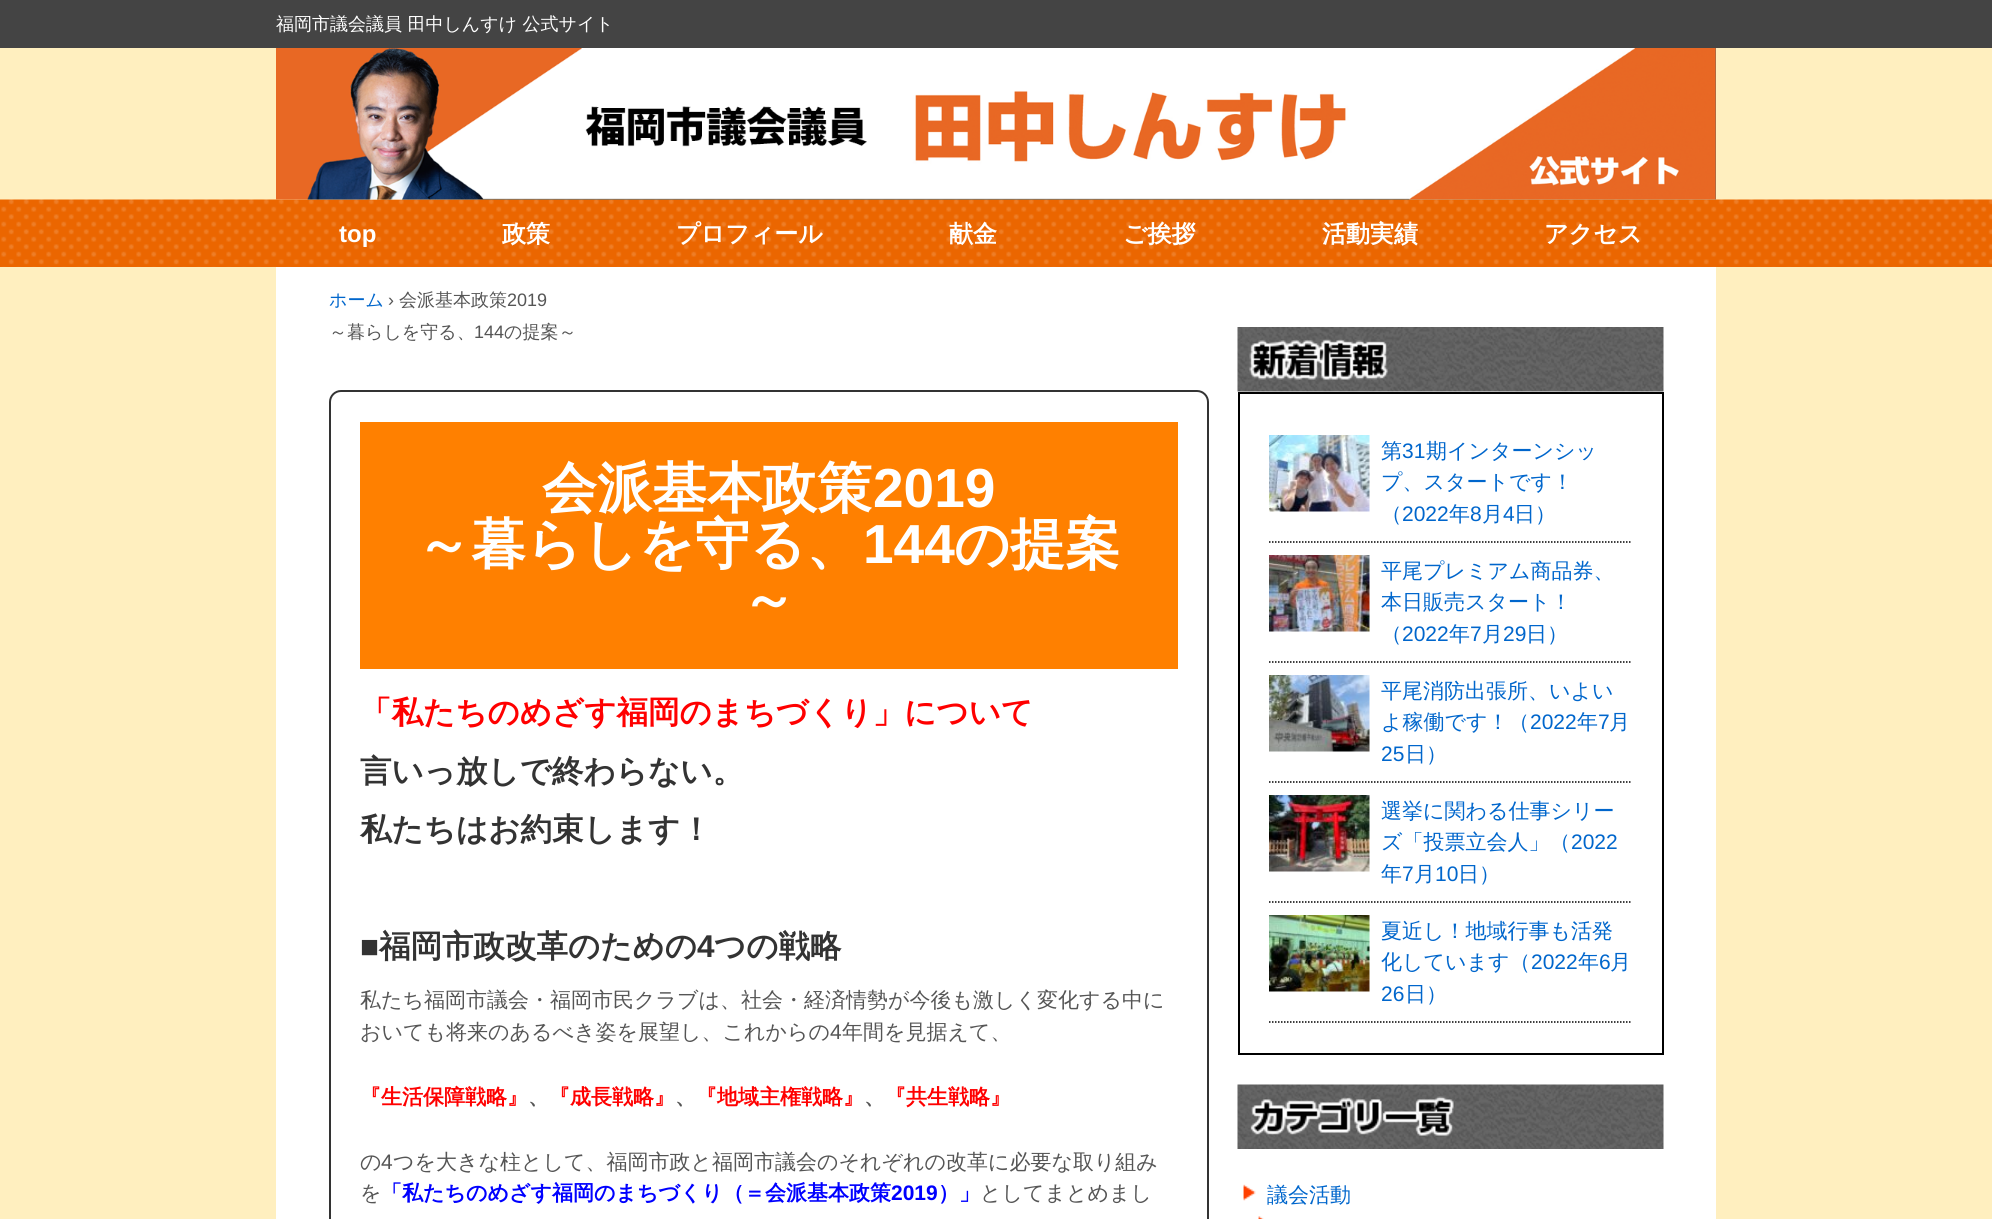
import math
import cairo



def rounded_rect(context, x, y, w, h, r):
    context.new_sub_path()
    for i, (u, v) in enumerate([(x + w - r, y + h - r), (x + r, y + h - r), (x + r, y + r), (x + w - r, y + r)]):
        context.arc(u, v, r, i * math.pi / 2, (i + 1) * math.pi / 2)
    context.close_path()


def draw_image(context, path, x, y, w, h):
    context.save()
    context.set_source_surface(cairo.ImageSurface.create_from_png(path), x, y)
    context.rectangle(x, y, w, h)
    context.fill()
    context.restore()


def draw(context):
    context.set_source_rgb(1, 239 / 255, 191 / 255)
    context.paint()
    context.set_source_rgb(68 / 255, 68 / 255, 68 / 255)
    context.rectangle(0, 0, 1992, 48)
    context.fill()
    draw_image(context, "images/2.png", 0, 199, 1992, 68)
    draw_image(context, "images/1.png", 276, 48, 1440, 152)
    context.set_source_rgb(1, 1, 1)
    context.rectangle(276, 267, 1440, 952)
    context.fill()
    rounded_rect(context, 330, 391, 878, 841, 11)
    context.set_source_rgb(51 / 255, 51 / 255, 51 / 255)
    context.stroke()
    context.set_source_rgb(1, 128 / 255, 0)
    context.rectangle(360, 422, 818, 247)
    context.fill()
    draw_image(context, "images/3.png", 1237, 327, 427, 65)
    draw_image(context, "images/4.png", 1249, 339, 139, 41)
    context.rectangle(1239, 393, 424, 661)
    context.set_source_rgb(0, 0, 0)
    context.stroke()
    context.new_path()
    context.move_to(1269, 542)
    context.line_to(1632, 542)
    context.set_line_width(1.5)
    context.set_dash([1.5, 1.5])
    context.stroke()
    draw_image(context, "images/5.png", 1269, 435, 101, 77)
    context.new_path()
    context.move_to(1269, 662)
    context.line_to(1632, 662)
    context.stroke()
    draw_image(context, "images/6.png", 1269, 555, 101, 77)
    context.new_path()
    context.move_to(1269, 782)
    context.line_to(1632, 782)
    context.stroke()
    draw_image(context, "images/7.png", 1269, 675, 101, 77)
    context.new_path()
    context.move_to(1269, 902)
    context.line_to(1632, 902)
    context.stroke()
    draw_image(context, "images/8.png", 1269, 795, 101, 77)
    context.new_path()
    context.move_to(1269, 1022)
    context.line_to(1632, 1022)
    context.stroke()
    draw_image(context, "images/9.png", 1269, 915, 101, 77)
    draw_image(context, "images/10.png", 1237, 1084, 427, 65)
    draw_image(context, "images/11.png", 1250, 1096, 204, 40)
    draw_image(context, "images/12.png", 1243, 1184, 13, 17)
    draw_image(context, "images/13.png", 1258, 1216, 6, 3)
    context.select_font_face("WenQuanYi Zen Hei Medium")
    context.set_font_size(18)
    context.set_source_rgb(1, 1, 1)
    context.move_to(276, 30)
    context.show_text("福岡市議会議員 田中しんすけ 公式サイト")
    context.select_font_face("Liberation Sans", cairo.FontSlant.NORMAL, cairo.FontWeight.BOLD)
    context.set_font_size(24)
    context.move_to(339, 242)
    context.show_text("top")
    context.select_font_face("WenQuanYi Zen Hei", cairo.FontSlant.NORMAL, cairo.FontWeight.BOLD)
    context.move_to(502, 242)
    context.show_text("政策")
    context.move_to(676, 242)
    context.show_text("プロフィール")
    context.move_to(949, 242)
    context.show_text("献金")
    context.move_to(1123, 242)
    context.show_text("ご挨拶")
    context.move_to(1322, 242)
    context.show_text("活動実績")
    context.move_to(1544, 242)
    context.show_text("アクセス")
    context.select_font_face("WenQuanYi Zen Hei Medium")
    context.set_font_size(18)
    context.set_source_rgb(0, 102 / 255, 204 / 255)
    context.move_to(329, 306)
    context.show_text("ホーム")
    context.select_font_face("Liberation Sans")
    context.set_source_rgb(85 / 255, 85 / 255, 85 / 255)
    context.move_to(388, 306)
    context.show_text("›")
    context.select_font_face("WenQuanYi Zen Hei Medium")
    context.move_to(399, 306)
    context.show_text("会派基本政策")
    context.select_font_face("Liberation Sans")
    context.move_to(507, 306)
    context.show_text("2019")
    context.select_font_face("WenQuanYi Zen Hei Medium")
    context.move_to(329, 338)
    context.show_text("～暮らしを守る、")
    context.select_font_face("Liberation Sans")
    context.move_to(474, 338)
    context.show_text("144")
    context.select_font_face("WenQuanYi Zen Hei Medium")
    context.move_to(504, 338)
    context.show_text("の提案～")
    context.select_font_face("WenQuanYi Zen Hei", cairo.FontSlant.NORMAL, cairo.FontWeight.BOLD)
    context.set_font_size(55)
    context.set_source_rgb(1, 1, 1)
    context.move_to(542, 507)
    context.show_text("会派基本政策")
    context.select_font_face("Liberation Sans", cairo.FontSlant.NORMAL, cairo.FontWeight.BOLD)
    context.move_to(873, 507)
    context.show_text("2019")
    context.select_font_face("WenQuanYi Zen Hei", cairo.FontSlant.NORMAL, cairo.FontWeight.BOLD)
    context.move_to(416, 563)
    context.show_text("～暮らしを守る、")
    context.select_font_face("Liberation Sans", cairo.FontSlant.NORMAL, cairo.FontWeight.BOLD)
    context.move_to(863, 563)
    context.show_text("144")
    context.select_font_face("WenQuanYi Zen Hei", cairo.FontSlant.NORMAL, cairo.FontWeight.BOLD)
    context.move_to(954, 563)
    context.show_text("の提案")
    context.move_to(741, 618)
    context.show_text("～")
    context.set_font_size(31.5)
    context.set_source_rgb(1, 0, 0)
    context.move_to(360, 723)
    context.show_text("「私たちのめざす福岡のまちづくり」について")
    context.set_source_rgb(51 / 255, 51 / 255, 51 / 255)
    context.move_to(360, 782)
    context.show_text("言いっ放しで終わらない。")
    context.move_to(360, 840)
    context.show_text("私たちはお約束します！")
    context.select_font_face("Liberation Sans", cairo.FontSlant.NORMAL, cairo.FontWeight.BOLD)
    context.move_to(360, 957)
    context.show_text("■")
    context.select_font_face("WenQuanYi Zen Hei", cairo.FontSlant.NORMAL, cairo.FontWeight.BOLD)
    context.move_to(379, 957)
    context.show_text("福岡市政改革のための")
    context.select_font_face("Liberation Sans", cairo.FontSlant.NORMAL, cairo.FontWeight.BOLD)
    context.move_to(697, 957)
    context.show_text("4")
    context.select_font_face("WenQuanYi Zen Hei", cairo.FontSlant.NORMAL, cairo.FontWeight.BOLD)
    context.move_to(714, 957)
    context.show_text("つの戦略")
    context.select_font_face("WenQuanYi Zen Hei Medium")
    context.set_font_size(21)
    context.set_source_rgb(85 / 255, 85 / 255, 85 / 255)
    context.move_to(360, 1007)
    context.show_text("私たち福岡市議会・福岡市民クラブは、社会・経済情勢が今後も激しく変化する中に")
    context.move_to(360, 1039)
    context.show_text("おいても将来のあるべき姿を展望し、これからの")
    context.select_font_face("Liberation Sans")
    context.move_to(830, 1039)
    context.show_text("4")
    context.select_font_face("WenQuanYi Zen Hei Medium")
    context.move_to(842, 1039)
    context.show_text("年間を見据えて、")
    context.select_font_face("WenQuanYi Zen Hei", cairo.FontSlant.NORMAL, cairo.FontWeight.BOLD)
    context.set_source_rgb(1, 0, 0)
    context.move_to(360, 1104)
    context.show_text("『生活保障戦略』")
    context.set_source_rgb(85 / 255, 85 / 255, 85 / 255)
    context.move_to(528, 1104)
    context.show_text("、")
    context.set_source_rgb(1, 0, 0)
    context.move_to(549, 1104)
    context.show_text("『成長戦略』")
    context.set_source_rgb(85 / 255, 85 / 255, 85 / 255)
    context.move_to(675, 1104)
    context.show_text("、")
    context.set_source_rgb(1, 0, 0)
    context.move_to(696, 1104)
    context.show_text("『地域主権戦略』")
    context.set_source_rgb(85 / 255, 85 / 255, 85 / 255)
    context.move_to(864, 1104)
    context.show_text("、")
    context.set_source_rgb(1, 0, 0)
    context.move_to(885, 1104)
    context.show_text("『共生戦略』")
    context.select_font_face("WenQuanYi Zen Hei Medium")
    context.set_source_rgb(85 / 255, 85 / 255, 85 / 255)
    context.move_to(360, 1169)
    context.show_text("の")
    context.select_font_face("Liberation Sans")
    context.move_to(381, 1169)
    context.show_text("4")
    context.select_font_face("WenQuanYi Zen Hei Medium")
    context.move_to(393, 1169)
    context.show_text("つを大きな柱として、福岡市政と福岡市議会のそれぞれの改革に必要な取り組み")
    context.move_to(360, 1200)
    context.show_text("を")
    context.select_font_face("WenQuanYi Zen Hei", cairo.FontSlant.NORMAL, cairo.FontWeight.BOLD)
    context.set_source_rgb(0, 0, 1)
    context.move_to(381, 1200)
    context.show_text("「私たちのめざす福岡のまちづくり（＝会派基本政策")
    context.select_font_face("Liberation Sans", cairo.FontSlant.NORMAL, cairo.FontWeight.BOLD)
    context.move_to(891, 1200)
    context.show_text("2019")
    context.select_font_face("WenQuanYi Zen Hei", cairo.FontSlant.NORMAL, cairo.FontWeight.BOLD)
    context.move_to(938, 1200)
    context.show_text("）」")
    context.select_font_face("WenQuanYi Zen Hei Medium")
    context.set_source_rgb(85 / 255, 85 / 255, 85 / 255)
    context.move_to(980, 1200)
    context.show_text("としてまとめまし")
    context.set_source_rgb(0, 102 / 255, 204 / 255)
    context.move_to(1381, 458)
    context.show_text("第")
    context.select_font_face("Liberation Sans")
    context.move_to(1402, 458)
    context.show_text("31")
    context.select_font_face("WenQuanYi Zen Hei Medium")
    context.move_to(1426, 458)
    context.show_text("期インターンシッ")
    context.move_to(1381, 489)
    context.show_text("プ、スタートです！")
    context.move_to(1381, 521)
    context.show_text("（")
    context.select_font_face("Liberation Sans")
    context.move_to(1402, 521)
    context.show_text("2022")
    context.select_font_face("WenQuanYi Zen Hei Medium")
    context.move_to(1449, 521)
    context.show_text("年")
    context.select_font_face("Liberation Sans")
    context.move_to(1470, 521)
    context.show_text("8")
    context.select_font_face("WenQuanYi Zen Hei Medium")
    context.move_to(1482, 521)
    context.show_text("月")
    context.select_font_face("Liberation Sans")
    context.move_to(1503, 521)
    context.show_text("4")
    context.select_font_face("WenQuanYi Zen Hei Medium")
    context.move_to(1514, 521)
    context.show_text("日）")
    context.move_to(1381, 578)
    context.show_text("平尾プレミアム商品券、")
    context.move_to(1381, 609)
    context.show_text("本日販売スタート！")
    context.move_to(1381, 641)
    context.show_text("（")
    context.select_font_face("Liberation Sans")
    context.move_to(1402, 641)
    context.show_text("2022")
    context.select_font_face("WenQuanYi Zen Hei Medium")
    context.move_to(1449, 641)
    context.show_text("年")
    context.select_font_face("Liberation Sans")
    context.move_to(1470, 641)
    context.show_text("7")
    context.select_font_face("WenQuanYi Zen Hei Medium")
    context.move_to(1482, 641)
    context.show_text("月")
    context.select_font_face("Liberation Sans")
    context.move_to(1503, 641)
    context.show_text("29")
    context.select_font_face("WenQuanYi Zen Hei Medium")
    context.move_to(1526, 641)
    context.show_text("日）")
    context.move_to(1381, 698)
    context.show_text("平尾消防出張所、いよい")
    context.move_to(1381, 729)
    context.show_text("よ稼働です！（")
    context.select_font_face("Liberation Sans")
    context.move_to(1530, 729)
    context.show_text("2022")
    context.select_font_face("WenQuanYi Zen Hei Medium")
    context.move_to(1577, 729)
    context.show_text("年")
    context.select_font_face("Liberation Sans")
    context.move_to(1598, 729)
    context.show_text("7")
    context.select_font_face("WenQuanYi Zen Hei Medium")
    context.move_to(1609, 729)
    context.show_text("月")
    context.select_font_face("Liberation Sans")
    context.move_to(1381, 761)
    context.show_text("25")
    context.select_font_face("WenQuanYi Zen Hei Medium")
    context.move_to(1405, 761)
    context.show_text("日）")
    context.move_to(1381, 818)
    context.show_text("選挙に関わる仕事シリー")
    context.move_to(1381, 849)
    context.show_text("ズ「投票立会人」（")
    context.select_font_face("Liberation Sans")
    context.move_to(1571, 849)
    context.show_text("2022")
    context.select_font_face("WenQuanYi Zen Hei Medium")
    context.move_to(1381, 881)
    context.show_text("年")
    context.select_font_face("Liberation Sans")
    context.move_to(1402, 881)
    context.show_text("7")
    context.select_font_face("WenQuanYi Zen Hei Medium")
    context.move_to(1414, 881)
    context.show_text("月")
    context.select_font_face("Liberation Sans")
    context.move_to(1435, 881)
    context.show_text("10")
    context.select_font_face("WenQuanYi Zen Hei Medium")
    context.move_to(1458, 881)
    context.show_text("日）")
    context.move_to(1381, 938)
    context.show_text("夏近し！地域行事も活発")
    context.move_to(1381, 969)
    context.show_text("化しています（")
    context.select_font_face("Liberation Sans")
    context.move_to(1531, 969)
    context.show_text("2022")
    context.select_font_face("WenQuanYi Zen Hei Medium")
    context.move_to(1578, 969)
    context.show_text("年")
    context.select_font_face("Liberation Sans")
    context.move_to(1599, 969)
    context.show_text("6")
    context.select_font_face("WenQuanYi Zen Hei Medium")
    context.move_to(1610, 969)
    context.show_text("月")
    context.select_font_face("Liberation Sans")
    context.move_to(1381, 1001)
    context.show_text("26")
    context.select_font_face("WenQuanYi Zen Hei Medium")
    context.move_to(1405, 1001)
    context.show_text("日）")
    context.move_to(1267, 1202)
    context.show_text("議会活動")


surface = cairo.ImageSurface(cairo.Format.RGB24, 1992, 1219)
context = cairo.Context(surface)
options = cairo.FontOptions()
options.set_hint_metrics(cairo.HintMetrics.OFF)
options.set_hint_style(cairo.HintStyle.NONE)
context.set_font_options(options)
context.set_miter_limit(4)
draw(context)
surface.write_to_png("out.png")
